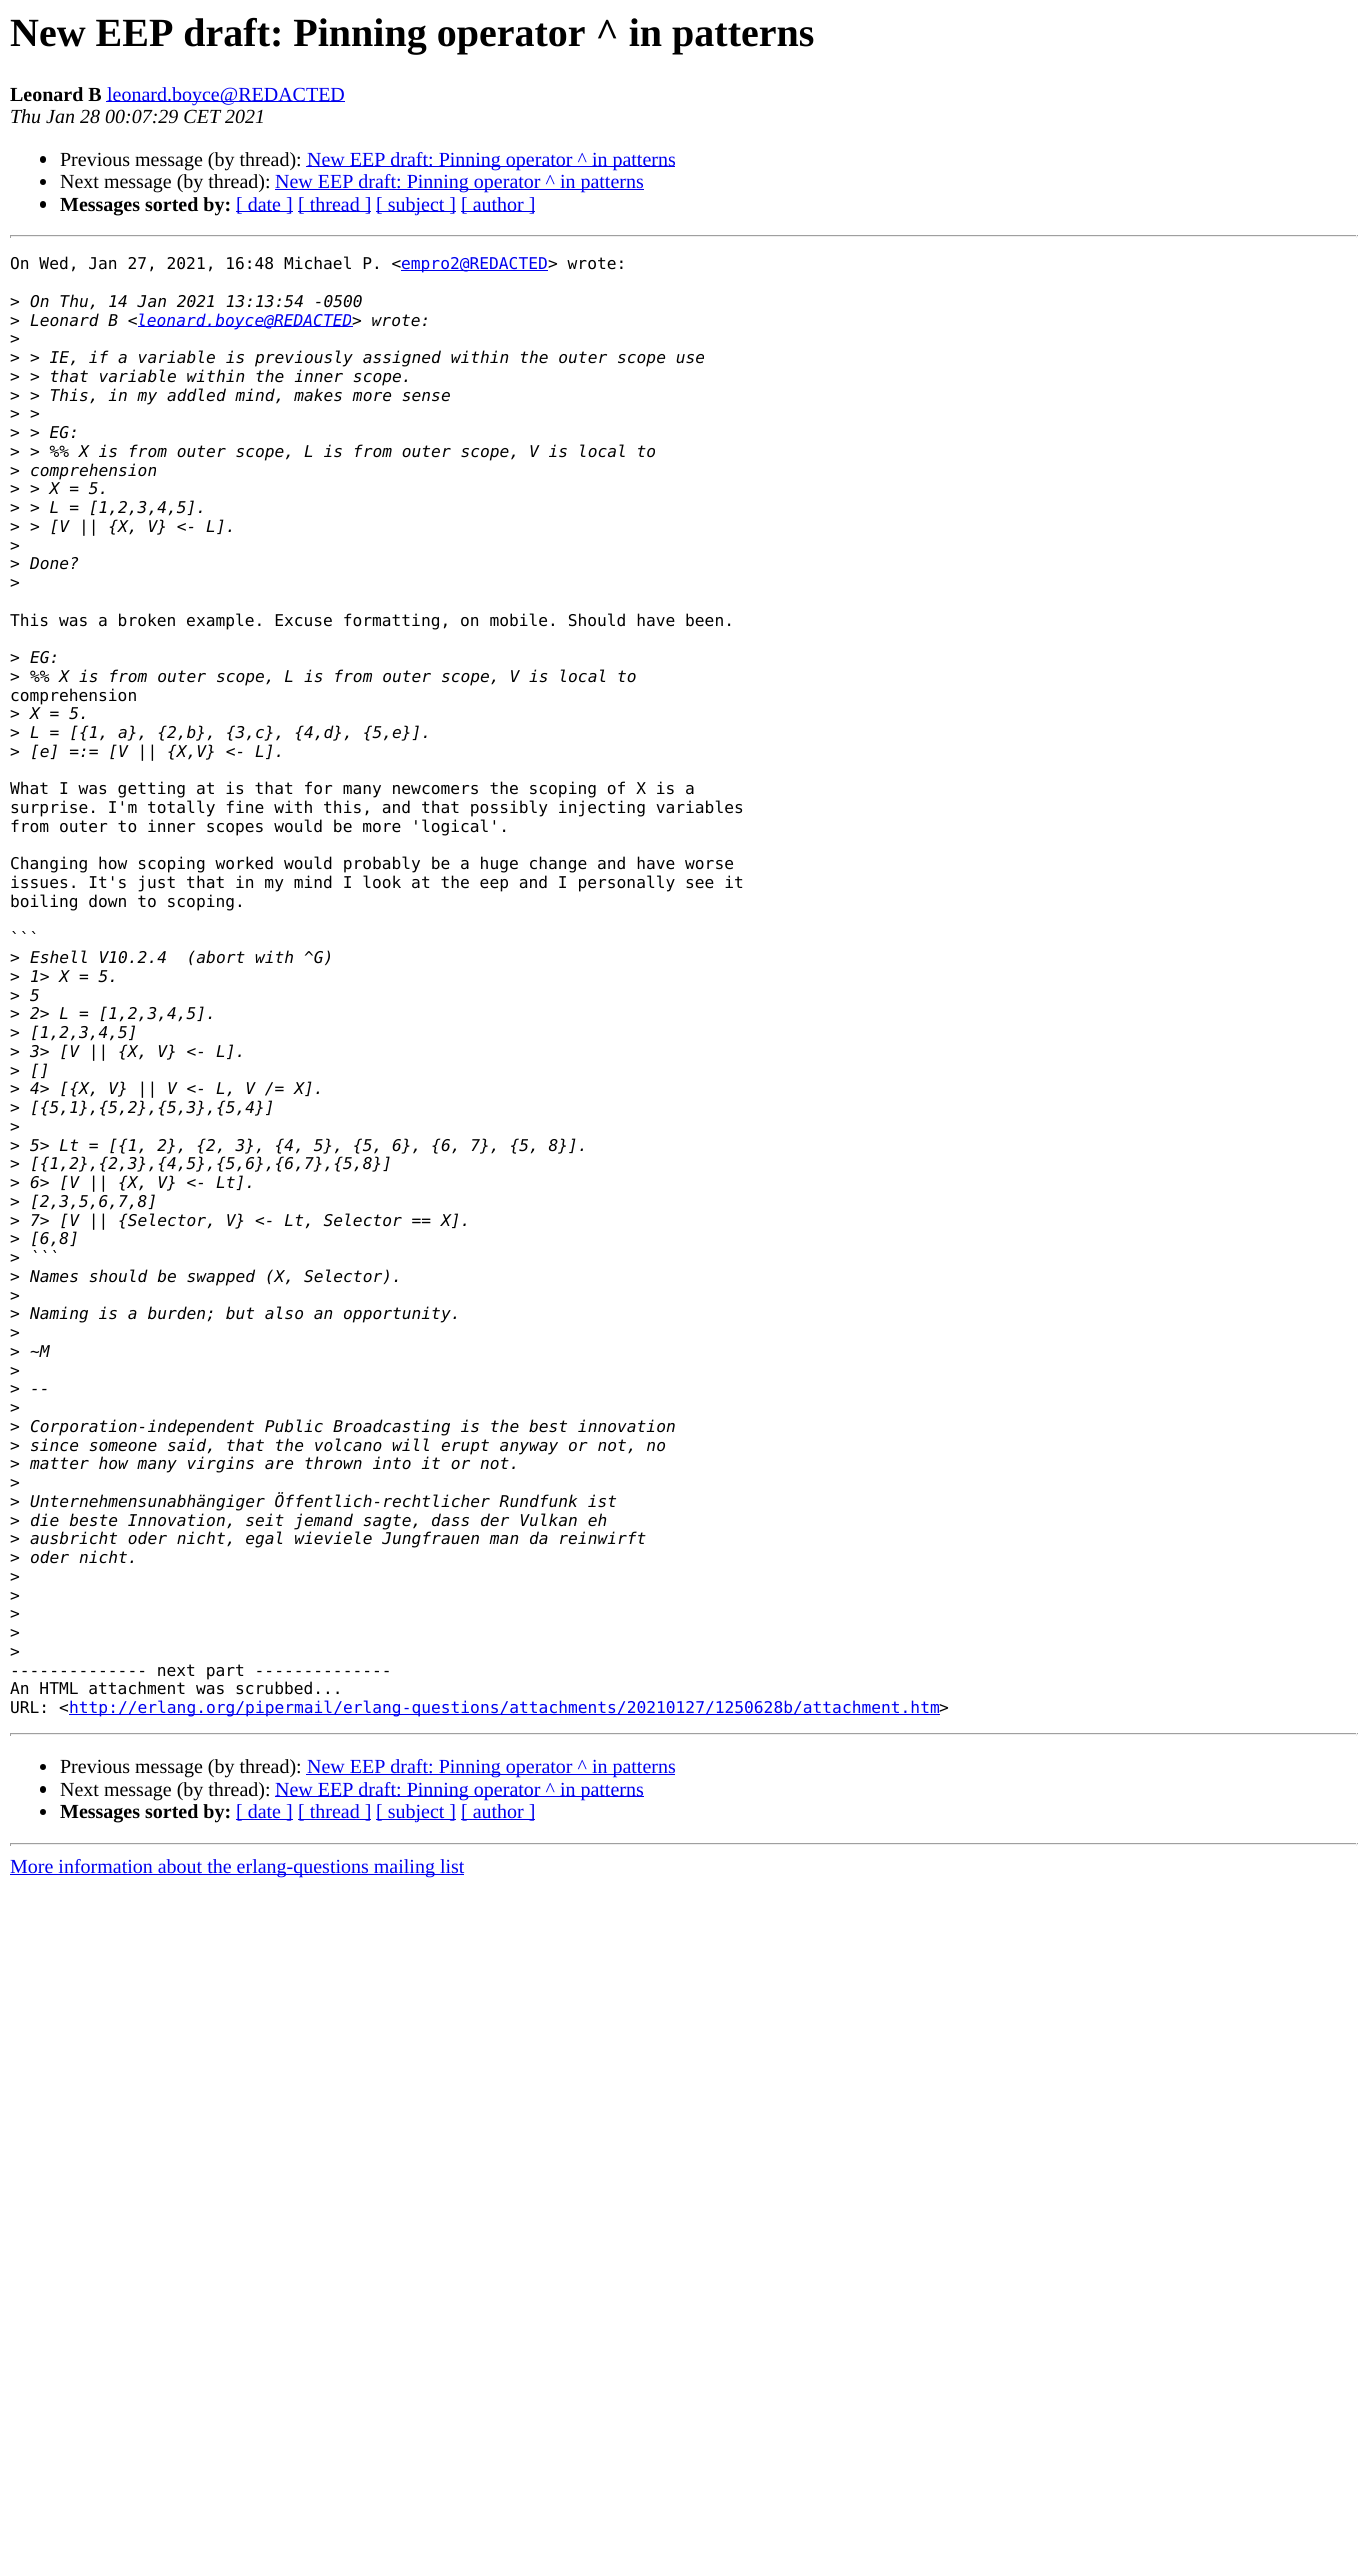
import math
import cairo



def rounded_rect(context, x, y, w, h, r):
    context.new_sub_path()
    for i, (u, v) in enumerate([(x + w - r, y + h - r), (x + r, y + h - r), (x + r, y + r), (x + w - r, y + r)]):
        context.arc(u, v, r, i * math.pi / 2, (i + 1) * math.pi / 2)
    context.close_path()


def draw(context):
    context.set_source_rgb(1, 1, 1)
    context.paint()
    context.set_source_rgb(0, 0, 238 / 255)
    context.rectangle(106, 101, 239, 1)
    context.fill()
    context.set_source_rgb(0, 0, 0)
    rounded_rect(context, 40, 156, 6, 7, 3)
    context.fill()
    context.set_source_rgb(0, 0, 238 / 255)
    context.rectangle(306, 166, 369, 1)
    context.fill()
    context.set_source_rgb(0, 0, 0)
    context.arc(43, 182, 3, 0, 2 * math.pi)
    context.fill()
    context.set_source_rgb(0, 0, 238 / 255)
    context.rectangle(275, 189, 369, 1)
    context.fill()
    context.set_source_rgb(0, 0, 0)
    rounded_rect(context, 40, 201, 6, 7, 3)
    context.fill()
    context.set_source_rgb(0, 0, 238 / 255)
    context.rectangle(236, 211, 57, 1)
    context.fill()
    context.rectangle(298, 211, 73, 1)
    context.fill()
    context.rectangle(376, 211, 80, 1)
    context.fill()
    context.rectangle(461, 211, 74, 1)
    context.fill()
    context.set_source_rgb(159 / 255, 159 / 255, 159 / 255)
    context.rectangle(10, 235, 1348, 1)
    context.fill()
    context.set_source_rgb(238 / 255, 238 / 255, 238 / 255)
    context.rectangle(1356, 235, 1, 3)
    context.fill()
    context.rectangle(10, 236, 1348, 1)
    context.fill()
    context.set_source_rgb(159 / 255, 159 / 255, 159 / 255)
    context.rectangle(10, 235, 1, 3)
    context.fill()
    context.set_source_rgb(0, 0, 238 / 255)
    context.rectangle(401, 270, 147, 1)
    context.fill()
    context.rectangle(138, 326, 215, 1)
    context.fill()
    context.rectangle(69, 1714, 871, 1)
    context.fill()
    context.set_source_rgb(159 / 255, 159 / 255, 159 / 255)
    context.rectangle(10, 1733, 1348, 1)
    context.fill()
    context.set_source_rgb(238 / 255, 238 / 255, 238 / 255)
    context.rectangle(1356, 1733, 1, 3)
    context.fill()
    context.rectangle(10, 1734, 1348, 1)
    context.fill()
    context.set_source_rgb(159 / 255, 159 / 255, 159 / 255)
    context.rectangle(10, 1733, 1, 3)
    context.fill()
    context.set_source_rgb(0, 0, 0)
    context.arc(43, 1767, 3, 0, 2 * math.pi)
    context.fill()
    context.set_source_rgb(0, 0, 238 / 255)
    context.rectangle(306, 1774, 369, 1)
    context.fill()
    context.set_source_rgb(0, 0, 0)
    rounded_rect(context, 40, 1786, 6, 7, 3)
    context.fill()
    context.set_source_rgb(0, 0, 238 / 255)
    context.rectangle(275, 1796, 369, 1)
    context.fill()
    context.set_source_rgb(0, 0, 0)
    context.arc(43, 1812, 3, 0, 2 * math.pi)
    context.fill()
    context.set_source_rgb(0, 0, 238 / 255)
    context.rectangle(236, 1819, 57, 1)
    context.fill()
    context.rectangle(298, 1819, 73, 1)
    context.fill()
    context.rectangle(376, 1819, 80, 1)
    context.fill()
    context.rectangle(461, 1819, 74, 1)
    context.fill()
    context.set_source_rgb(159 / 255, 159 / 255, 159 / 255)
    context.rectangle(10, 1843, 1348, 1)
    context.fill()
    context.set_source_rgb(238 / 255, 238 / 255, 238 / 255)
    context.rectangle(1356, 1843, 1, 3)
    context.fill()
    context.rectangle(10, 1844, 1348, 1)
    context.fill()
    context.set_source_rgb(159 / 255, 159 / 255, 159 / 255)
    context.rectangle(10, 1843, 1, 3)
    context.fill()
    context.set_source_rgb(0, 0, 238 / 255)
    context.rectangle(10, 1874, 454, 1)
    context.fill()
    context.select_font_face("Liberation Serif", cairo.FontSlant.NORMAL, cairo.FontWeight.BOLD)
    context.set_font_size(40)
    context.set_source_rgb(0, 0, 0)
    context.move_to(10, 46)
    context.show_text("New EEP draft: Pinning operator ^ in patterns")
    context.set_font_size(20)
    context.move_to(10, 101)
    context.show_text("Leonard B")
    context.select_font_face("Liberation Serif")
    context.set_source_rgb(0, 0, 238 / 255)
    context.move_to(107, 101)
    context.show_text("leonard.boyce@REDACTED")
    context.select_font_face("Liberation Serif", cairo.FontSlant.ITALIC)
    context.set_source_rgb(0, 0, 0)
    context.move_to(10, 123)
    context.show_text("Thu Jan 28 00:07:29 CET 2021")
    context.select_font_face("Liberation Serif")
    context.move_to(60, 166)
    context.show_text("Previous message (by thread):")
    context.set_source_rgb(0, 0, 238 / 255)
    context.move_to(307, 166)
    context.show_text("New EEP draft: Pinning operator ^ in patterns")
    context.set_source_rgb(0, 0, 0)
    context.move_to(60, 188)
    context.show_text("Next message (by thread):")
    context.set_source_rgb(0, 0, 238 / 255)
    context.move_to(275, 188)
    context.show_text("New EEP draft: Pinning operator ^ in patterns")
    context.select_font_face("Liberation Serif", cairo.FontSlant.NORMAL, cairo.FontWeight.BOLD)
    context.set_source_rgb(0, 0, 0)
    context.move_to(60, 211)
    context.show_text("Messages sorted by:")
    context.select_font_face("Liberation Serif")
    context.set_source_rgb(0, 0, 238 / 255)
    context.move_to(236, 211)
    context.show_text("[ date ]")
    context.move_to(298, 211)
    context.show_text("[ thread ]")
    context.move_to(376, 211)
    context.show_text("[ subject ]")
    context.move_to(461, 211)
    context.show_text("[ author ]")
    context.select_font_face("DejaVu Sans Mono")
    context.set_font_size(16.25)
    context.set_source_rgb(0, 0, 0)
    context.move_to(10, 269)
    context.show_text("On Wed, Jan 27, 2021, 16:48 Michael P. <")
    context.set_source_rgb(0, 0, 238 / 255)
    context.move_to(401, 269)
    context.show_text("empro2@REDACTED")
    context.set_source_rgb(0, 0, 0)
    context.move_to(548, 269)
    context.show_text("> wrote:")
    context.move_to(10, 307)
    context.show_text(">")
    context.select_font_face("DejaVu Sans Mono", cairo.FontSlant.ITALIC)
    context.move_to(30, 307)
    context.show_text("On Thu, 14 Jan 2021 13:13:54 -0500")
    context.select_font_face("DejaVu Sans Mono")
    context.move_to(10, 326)
    context.show_text(">")
    context.select_font_face("DejaVu Sans Mono", cairo.FontSlant.ITALIC)
    context.move_to(30, 326)
    context.show_text("Leonard B <")
    context.set_source_rgb(0, 0, 238 / 255)
    context.move_to(137, 326)
    context.show_text("leonard.boyce@REDACTED")
    context.set_source_rgb(0, 0, 0)
    context.move_to(352, 326)
    context.show_text("> wrote:")
    context.select_font_face("DejaVu Sans Mono")
    context.move_to(10, 344)
    context.show_text(">")
    context.move_to(10, 363)
    context.show_text(">")
    context.select_font_face("DejaVu Sans Mono", cairo.FontSlant.ITALIC)
    context.move_to(30, 363)
    context.show_text("> IE, if a variable is previously assigned within the outer scope use")
    context.select_font_face("DejaVu Sans Mono")
    context.move_to(10, 382)
    context.show_text(">")
    context.select_font_face("DejaVu Sans Mono", cairo.FontSlant.ITALIC)
    context.move_to(30, 382)
    context.show_text("> that variable within the inner scope.")
    context.select_font_face("DejaVu Sans Mono")
    context.move_to(10, 401)
    context.show_text(">")
    context.select_font_face("DejaVu Sans Mono", cairo.FontSlant.ITALIC)
    context.move_to(30, 401)
    context.show_text("> This, in my addled mind, makes more sense")
    context.select_font_face("DejaVu Sans Mono")
    context.move_to(10, 419)
    context.show_text(">")
    context.select_font_face("DejaVu Sans Mono", cairo.FontSlant.ITALIC)
    context.move_to(30, 419)
    context.show_text(">")
    context.select_font_face("DejaVu Sans Mono")
    context.move_to(10, 438)
    context.show_text(">")
    context.select_font_face("DejaVu Sans Mono", cairo.FontSlant.ITALIC)
    context.move_to(30, 438)
    context.show_text("> EG:")
    context.select_font_face("DejaVu Sans Mono")
    context.move_to(10, 457)
    context.show_text(">")
    context.select_font_face("DejaVu Sans Mono", cairo.FontSlant.ITALIC)
    context.move_to(30, 457)
    context.show_text("> %% X is from outer scope, L is from outer scope, V is local to")
    context.select_font_face("DejaVu Sans Mono")
    context.move_to(10, 476)
    context.show_text(">")
    context.select_font_face("DejaVu Sans Mono", cairo.FontSlant.ITALIC)
    context.move_to(30, 476)
    context.show_text("comprehension")
    context.select_font_face("DejaVu Sans Mono")
    context.move_to(10, 494)
    context.show_text(">")
    context.select_font_face("DejaVu Sans Mono", cairo.FontSlant.ITALIC)
    context.move_to(30, 494)
    context.show_text("> X = 5.")
    context.select_font_face("DejaVu Sans Mono")
    context.move_to(10, 513)
    context.show_text(">")
    context.select_font_face("DejaVu Sans Mono", cairo.FontSlant.ITALIC)
    context.move_to(30, 513)
    context.show_text("> L = [1,2,3,4,5].")
    context.select_font_face("DejaVu Sans Mono")
    context.move_to(10, 532)
    context.show_text(">")
    context.select_font_face("DejaVu Sans Mono", cairo.FontSlant.ITALIC)
    context.move_to(30, 532)
    context.show_text("> [V || {X, V} <- L].")
    context.select_font_face("DejaVu Sans Mono")
    context.move_to(10, 551)
    context.show_text(">")
    context.move_to(10, 569)
    context.show_text(">")
    context.select_font_face("DejaVu Sans Mono", cairo.FontSlant.ITALIC)
    context.move_to(30, 569)
    context.show_text("Done?")
    context.select_font_face("DejaVu Sans Mono")
    context.move_to(10, 588)
    context.show_text(">")
    context.move_to(10, 626)
    context.show_text("This was a broken example. Excuse formatting, on mobile. Should have been.")
    context.move_to(10, 663)
    context.show_text(">")
    context.select_font_face("DejaVu Sans Mono", cairo.FontSlant.ITALIC)
    context.move_to(30, 663)
    context.show_text("EG:")
    context.select_font_face("DejaVu Sans Mono")
    context.move_to(10, 682)
    context.show_text(">")
    context.select_font_face("DejaVu Sans Mono", cairo.FontSlant.ITALIC)
    context.move_to(30, 682)
    context.show_text("%% X is from outer scope, L is from outer scope, V is local to")
    context.select_font_face("DejaVu Sans Mono")
    context.move_to(10, 701)
    context.show_text("comprehension")
    context.move_to(10, 719)
    context.show_text(">")
    context.select_font_face("DejaVu Sans Mono", cairo.FontSlant.ITALIC)
    context.move_to(30, 719)
    context.show_text("X = 5.")
    context.select_font_face("DejaVu Sans Mono")
    context.move_to(10, 738)
    context.show_text(">")
    context.select_font_face("DejaVu Sans Mono", cairo.FontSlant.ITALIC)
    context.move_to(30, 738)
    context.show_text("L = [{1, a}, {2,b}, {3,c}, {4,d}, {5,e}].")
    context.select_font_face("DejaVu Sans Mono")
    context.move_to(10, 757)
    context.show_text(">")
    context.select_font_face("DejaVu Sans Mono", cairo.FontSlant.ITALIC)
    context.move_to(30, 757)
    context.show_text("[e] =:= [V || {X,V} <- L].")
    context.select_font_face("DejaVu Sans Mono")
    context.move_to(10, 794)
    context.show_text("What I was getting at is that for many newcomers the scoping of X is a")
    context.move_to(10, 813)
    context.show_text("surprise. I'm totally fine with this, and that possibly injecting variables")
    context.move_to(10, 832)
    context.show_text("from outer to inner scopes would be more 'logical'.")
    context.move_to(10, 869)
    context.show_text("Changing how scoping worked would probably be a huge change and have worse")
    context.move_to(10, 888)
    context.show_text("issues. It's just that in my mind I look at the eep and I personally see it")
    context.move_to(10, 907)
    context.show_text("boiling down to scoping.")
    context.move_to(10, 944)
    context.show_text("```")
    context.move_to(10, 963)
    context.show_text(">")
    context.select_font_face("DejaVu Sans Mono", cairo.FontSlant.ITALIC)
    context.move_to(30, 963)
    context.show_text("Eshell V10.2.4  (abort with ^G)")
    context.select_font_face("DejaVu Sans Mono")
    context.move_to(10, 982)
    context.show_text(">")
    context.select_font_face("DejaVu Sans Mono", cairo.FontSlant.ITALIC)
    context.move_to(30, 982)
    context.show_text("1> X = 5.")
    context.select_font_face("DejaVu Sans Mono")
    context.move_to(10, 1001)
    context.show_text(">")
    context.select_font_face("DejaVu Sans Mono", cairo.FontSlant.ITALIC)
    context.move_to(30, 1001)
    context.show_text("5")
    context.select_font_face("DejaVu Sans Mono")
    context.move_to(10, 1019)
    context.show_text(">")
    context.select_font_face("DejaVu Sans Mono", cairo.FontSlant.ITALIC)
    context.move_to(30, 1019)
    context.show_text("2> L = [1,2,3,4,5].")
    context.select_font_face("DejaVu Sans Mono")
    context.move_to(10, 1038)
    context.show_text(">")
    context.select_font_face("DejaVu Sans Mono", cairo.FontSlant.ITALIC)
    context.move_to(30, 1038)
    context.show_text("[1,2,3,4,5]")
    context.select_font_face("DejaVu Sans Mono")
    context.move_to(10, 1057)
    context.show_text(">")
    context.select_font_face("DejaVu Sans Mono", cairo.FontSlant.ITALIC)
    context.move_to(30, 1057)
    context.show_text("3> [V || {X, V} <- L].")
    context.select_font_face("DejaVu Sans Mono")
    context.move_to(10, 1076)
    context.show_text(">")
    context.select_font_face("DejaVu Sans Mono", cairo.FontSlant.ITALIC)
    context.move_to(30, 1076)
    context.show_text("[]")
    context.select_font_face("DejaVu Sans Mono")
    context.move_to(10, 1094)
    context.show_text(">")
    context.select_font_face("DejaVu Sans Mono", cairo.FontSlant.ITALIC)
    context.move_to(30, 1094)
    context.show_text("4> [{X, V} || V <- L, V /= X].")
    context.select_font_face("DejaVu Sans Mono")
    context.move_to(10, 1113)
    context.show_text(">")
    context.select_font_face("DejaVu Sans Mono", cairo.FontSlant.ITALIC)
    context.move_to(30, 1113)
    context.show_text("[{5,1},{5,2},{5,3},{5,4}]")
    context.select_font_face("DejaVu Sans Mono")
    context.move_to(10, 1132)
    context.show_text(">")
    context.move_to(10, 1151)
    context.show_text(">")
    context.select_font_face("DejaVu Sans Mono", cairo.FontSlant.ITALIC)
    context.move_to(30, 1151)
    context.show_text("5> Lt = [{1, 2}, {2, 3}, {4, 5}, {5, 6}, {6, 7}, {5, 8}].")
    context.select_font_face("DejaVu Sans Mono")
    context.move_to(10, 1169)
    context.show_text(">")
    context.select_font_face("DejaVu Sans Mono", cairo.FontSlant.ITALIC)
    context.move_to(30, 1169)
    context.show_text("[{1,2},{2,3},{4,5},{5,6},{6,7},{5,8}]")
    context.select_font_face("DejaVu Sans Mono")
    context.move_to(10, 1188)
    context.show_text(">")
    context.select_font_face("DejaVu Sans Mono", cairo.FontSlant.ITALIC)
    context.move_to(30, 1188)
    context.show_text("6> [V || {X, V} <- Lt].")
    context.select_font_face("DejaVu Sans Mono")
    context.move_to(10, 1207)
    context.show_text(">")
    context.select_font_face("DejaVu Sans Mono", cairo.FontSlant.ITALIC)
    context.move_to(30, 1207)
    context.show_text("[2,3,5,6,7,8]")
    context.select_font_face("DejaVu Sans Mono")
    context.move_to(10, 1226)
    context.show_text(">")
    context.select_font_face("DejaVu Sans Mono", cairo.FontSlant.ITALIC)
    context.move_to(30, 1226)
    context.show_text("7> [V || {Selector, V} <- Lt, Selector == X].")
    context.select_font_face("DejaVu Sans Mono")
    context.move_to(10, 1244)
    context.show_text(">")
    context.select_font_face("DejaVu Sans Mono", cairo.FontSlant.ITALIC)
    context.move_to(30, 1244)
    context.show_text("[6,8]")
    context.move_to(30, 1263)
    context.show_text("```")
    context.select_font_face("DejaVu Sans Mono")
    context.move_to(10, 1263)
    context.show_text(">")
    context.move_to(10, 1282)
    context.show_text(">")
    context.select_font_face("DejaVu Sans Mono", cairo.FontSlant.ITALIC)
    context.move_to(30, 1282)
    context.show_text("Names should be swapped (X, Selector).")
    context.select_font_face("DejaVu Sans Mono")
    context.move_to(10, 1301)
    context.show_text(">")
    context.move_to(10, 1319)
    context.show_text(">")
    context.select_font_face("DejaVu Sans Mono", cairo.FontSlant.ITALIC)
    context.move_to(30, 1319)
    context.show_text("Naming is a burden; but also an opportunity.")
    context.select_font_face("DejaVu Sans Mono")
    context.move_to(10, 1338)
    context.show_text(">")
    context.move_to(10, 1357)
    context.show_text(">")
    context.select_font_face("DejaVu Sans Mono", cairo.FontSlant.ITALIC)
    context.move_to(30, 1357)
    context.show_text("~M")
    context.select_font_face("DejaVu Sans Mono")
    context.move_to(10, 1376)
    context.show_text(">")
    context.move_to(10, 1394)
    context.show_text(">")
    context.select_font_face("DejaVu Sans Mono", cairo.FontSlant.ITALIC)
    context.move_to(30, 1394)
    context.show_text("--")
    context.select_font_face("DejaVu Sans Mono")
    context.move_to(10, 1413)
    context.show_text(">")
    context.move_to(10, 1432)
    context.show_text(">")
    context.select_font_face("DejaVu Sans Mono", cairo.FontSlant.ITALIC)
    context.move_to(30, 1432)
    context.show_text("Corporation-independent Public Broadcasting is the best innovation")
    context.select_font_face("DejaVu Sans Mono")
    context.move_to(10, 1451)
    context.show_text(">")
    context.select_font_face("DejaVu Sans Mono", cairo.FontSlant.ITALIC)
    context.move_to(30, 1451)
    context.show_text("since someone said, that the volcano will erupt anyway or not, no")
    context.select_font_face("DejaVu Sans Mono")
    context.move_to(10, 1469)
    context.show_text(">")
    context.select_font_face("DejaVu Sans Mono", cairo.FontSlant.ITALIC)
    context.move_to(30, 1469)
    context.show_text("matter how many virgins are thrown into it or not.")
    context.select_font_face("DejaVu Sans Mono")
    context.move_to(10, 1488)
    context.show_text(">")
    context.move_to(10, 1507)
    context.show_text(">")
    context.select_font_face("DejaVu Sans Mono", cairo.FontSlant.ITALIC)
    context.move_to(30, 1507)
    context.show_text("Unternehmensunabhängiger Öffentlich-rechtlicher Rundfunk ist")
    context.select_font_face("DejaVu Sans Mono")
    context.move_to(10, 1526)
    context.show_text(">")
    context.select_font_face("DejaVu Sans Mono", cairo.FontSlant.ITALIC)
    context.move_to(30, 1526)
    context.show_text("die beste Innovation, seit jemand sagte, dass der Vulkan eh")
    context.select_font_face("DejaVu Sans Mono")
    context.move_to(10, 1544)
    context.show_text(">")
    context.select_font_face("DejaVu Sans Mono", cairo.FontSlant.ITALIC)
    context.move_to(30, 1544)
    context.show_text("ausbricht oder nicht, egal wieviele Jungfrauen man da reinwirft")
    context.select_font_face("DejaVu Sans Mono")
    context.move_to(10, 1563)
    context.show_text(">")
    context.select_font_face("DejaVu Sans Mono", cairo.FontSlant.ITALIC)
    context.move_to(30, 1563)
    context.show_text("oder nicht.")
    context.select_font_face("DejaVu Sans Mono")
    context.move_to(10, 1582)
    context.show_text(">")
    context.move_to(10, 1601)
    context.show_text(">")
    context.move_to(10, 1619)
    context.show_text(">")
    context.move_to(10, 1638)
    context.show_text(">")
    context.move_to(10, 1657)
    context.show_text(">")
    context.move_to(10, 1676)
    context.show_text("-------------- next part --------------")
    context.move_to(10, 1694)
    context.show_text("An HTML attachment was scrubbed...")
    context.move_to(10, 1713)
    context.show_text("URL: <")
    context.set_source_rgb(0, 0, 238 / 255)
    context.move_to(69, 1713)
    context.show_text("http://erlang.org/pipermail/erlang-questions/attachments/20210127/1250628b/attachment.htm")
    context.set_source_rgb(0, 0, 0)
    context.move_to(939, 1713)
    context.show_text(">")
    context.select_font_face("Liberation Serif")
    context.set_font_size(20)
    context.move_to(60, 1773)
    context.show_text("Previous message (by thread):")
    context.set_source_rgb(0, 0, 238 / 255)
    context.move_to(307, 1773)
    context.show_text("New EEP draft: Pinning operator ^ in patterns")
    context.set_source_rgb(0, 0, 0)
    context.move_to(60, 1796)
    context.show_text("Next message (by thread):")
    context.set_source_rgb(0, 0, 238 / 255)
    context.move_to(275, 1796)
    context.show_text("New EEP draft: Pinning operator ^ in patterns")
    context.select_font_face("Liberation Serif", cairo.FontSlant.NORMAL, cairo.FontWeight.BOLD)
    context.set_source_rgb(0, 0, 0)
    context.move_to(60, 1818)
    context.show_text("Messages sorted by:")
    context.select_font_face("Liberation Serif")
    context.set_source_rgb(0, 0, 238 / 255)
    context.move_to(236, 1818)
    context.show_text("[ date ]")
    context.move_to(298, 1818)
    context.show_text("[ thread ]")
    context.move_to(376, 1818)
    context.show_text("[ subject ]")
    context.move_to(461, 1818)
    context.show_text("[ author ]")
    context.move_to(10, 1873)
    context.show_text("More information about the erlang-questions mailing list")


surface = cairo.ImageSurface(cairo.Format.RGB24, 1367, 2556)
context = cairo.Context(surface)
options = cairo.FontOptions()
options.set_hint_metrics(cairo.HintMetrics.OFF)
options.set_hint_style(cairo.HintStyle.NONE)
context.set_font_options(options)
context.set_miter_limit(4)
draw(context)
surface.write_to_png("out.png")
